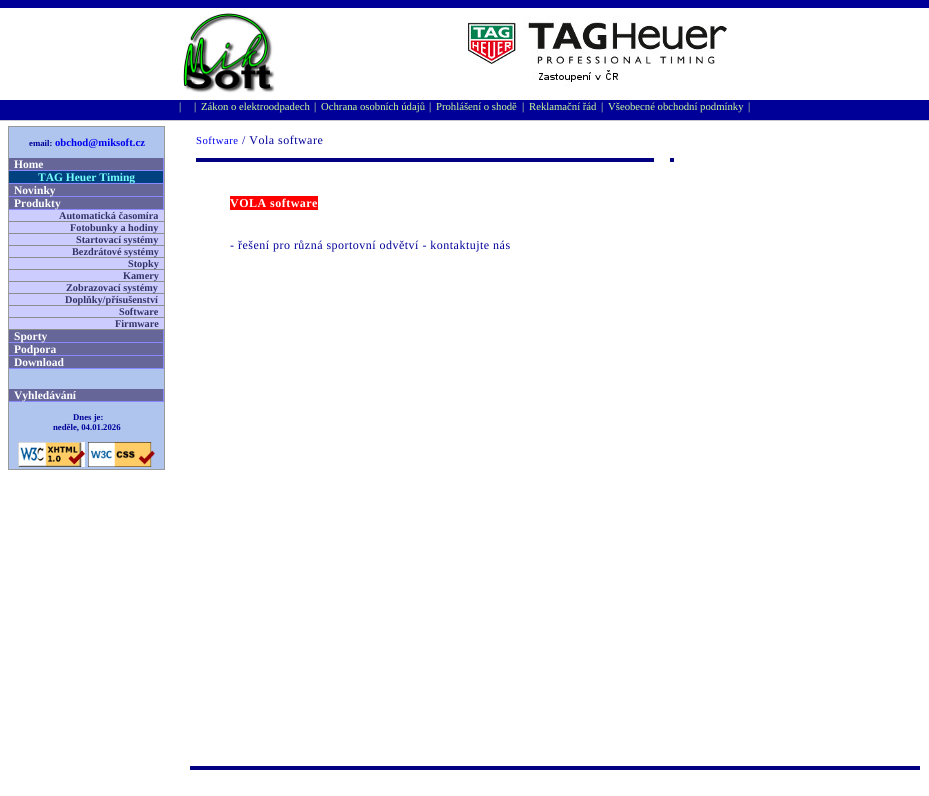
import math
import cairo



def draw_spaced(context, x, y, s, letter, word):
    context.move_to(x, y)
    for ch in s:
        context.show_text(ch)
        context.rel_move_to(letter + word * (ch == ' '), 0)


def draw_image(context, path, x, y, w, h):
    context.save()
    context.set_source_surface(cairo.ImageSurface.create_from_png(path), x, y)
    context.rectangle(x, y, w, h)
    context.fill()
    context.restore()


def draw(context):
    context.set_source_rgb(1, 1, 1)
    context.paint()
    context.set_source_rgb(0, 0, 152 / 255)
    context.rectangle(0, 0, 929, 8)
    context.fill()
    draw_image(context, "images/1.png", 183, 13, 92, 80)
    draw_image(context, "images/2.png", 468, 16, 260, 72)
    context.set_source_rgb(0, 0, 153 / 255)
    context.rectangle(0, 100, 929, 20)
    context.fill()
    context.set_source_rgb(200 / 255, 200 / 255, 210 / 255)
    context.rectangle(0, 120, 929, 1)
    context.fill()
    context.set_source_rgb(175 / 255, 197 / 255, 237 / 255)
    context.rectangle(8.5, 126.5, 156, 343)
    context.fill_preserve()
    context.set_source_rgb(153 / 255, 153 / 255, 153 / 255)
    context.set_line_width(1)
    context.stroke()
    context.set_source_rgb(102 / 255, 102 / 255, 153 / 255)
    context.rectangle(9, 158, 154, 12)
    context.fill()
    context.set_source_rgb(136 / 255, 136 / 255, 1)
    context.rectangle(163, 158, 1, 52)
    context.fill()
    context.rectangle(9, 170, 155, 1)
    context.fill()
    context.set_source_rgb(0, 65 / 255, 128 / 255)
    context.rectangle(9, 171, 154, 12)
    context.fill()
    context.set_source_rgb(136 / 255, 136 / 255, 1)
    context.rectangle(9, 183, 155, 1)
    context.fill()
    context.set_source_rgb(102 / 255, 102 / 255, 153 / 255)
    context.rectangle(9, 184, 154, 12)
    context.fill()
    context.set_source_rgb(136 / 255, 136 / 255, 1)
    context.rectangle(9, 196, 155, 1)
    context.fill()
    context.set_source_rgb(102 / 255, 102 / 255, 153 / 255)
    context.rectangle(9, 197, 154, 12)
    context.fill()
    context.set_source_rgb(136 / 255, 136 / 255, 1)
    context.rectangle(9, 209, 155, 1)
    context.fill()
    context.set_source_rgb(204 / 255, 204 / 255, 1)
    context.rectangle(9, 210, 155, 11)
    context.fill()
    context.set_source_rgb(141 / 255, 141 / 255, 141 / 255)
    context.rectangle(9, 221, 155, 1)
    context.fill()
    context.set_source_rgb(204 / 255, 204 / 255, 1)
    context.rectangle(9, 222, 155, 11)
    context.fill()
    context.set_source_rgb(141 / 255, 141 / 255, 141 / 255)
    context.rectangle(9, 233, 155, 1)
    context.fill()
    context.set_source_rgb(204 / 255, 204 / 255, 1)
    context.rectangle(9, 234, 155, 11)
    context.fill()
    context.set_source_rgb(141 / 255, 141 / 255, 141 / 255)
    context.rectangle(9, 245, 155, 1)
    context.fill()
    context.set_source_rgb(204 / 255, 204 / 255, 1)
    context.rectangle(9, 246, 155, 11)
    context.fill()
    context.set_source_rgb(141 / 255, 141 / 255, 141 / 255)
    context.rectangle(9, 257, 155, 1)
    context.fill()
    context.set_source_rgb(204 / 255, 204 / 255, 1)
    context.rectangle(9, 258, 155, 11)
    context.fill()
    context.set_source_rgb(141 / 255, 141 / 255, 141 / 255)
    context.rectangle(9, 269, 155, 1)
    context.fill()
    context.set_source_rgb(204 / 255, 204 / 255, 1)
    context.rectangle(9, 270, 155, 11)
    context.fill()
    context.set_source_rgb(141 / 255, 141 / 255, 141 / 255)
    context.rectangle(9, 281, 155, 1)
    context.fill()
    context.set_source_rgb(204 / 255, 204 / 255, 1)
    context.rectangle(9, 282, 155, 11)
    context.fill()
    context.set_source_rgb(141 / 255, 141 / 255, 141 / 255)
    context.rectangle(9, 293, 155, 1)
    context.fill()
    context.set_source_rgb(204 / 255, 204 / 255, 1)
    context.rectangle(9, 294, 155, 11)
    context.fill()
    context.set_source_rgb(141 / 255, 141 / 255, 141 / 255)
    context.rectangle(9, 305, 155, 1)
    context.fill()
    context.set_source_rgb(204 / 255, 204 / 255, 1)
    context.rectangle(9, 306, 155, 11)
    context.fill()
    context.set_source_rgb(141 / 255, 141 / 255, 141 / 255)
    context.rectangle(9, 317, 155, 1)
    context.fill()
    context.set_source_rgb(204 / 255, 204 / 255, 1)
    context.rectangle(9, 318, 155, 11)
    context.fill()
    context.set_source_rgb(141 / 255, 141 / 255, 141 / 255)
    context.rectangle(9, 329, 155, 1)
    context.fill()
    context.set_source_rgb(102 / 255, 102 / 255, 153 / 255)
    context.rectangle(9, 330, 154, 12)
    context.fill()
    context.set_source_rgb(136 / 255, 136 / 255, 1)
    context.rectangle(163, 330, 1, 39)
    context.fill()
    context.rectangle(9, 342, 155, 1)
    context.fill()
    context.set_source_rgb(102 / 255, 102 / 255, 153 / 255)
    context.rectangle(9, 343, 154, 12)
    context.fill()
    context.set_source_rgb(136 / 255, 136 / 255, 1)
    context.rectangle(9, 355, 155, 1)
    context.fill()
    context.set_source_rgb(102 / 255, 102 / 255, 153 / 255)
    context.rectangle(9, 356, 154, 12)
    context.fill()
    context.set_source_rgb(136 / 255, 136 / 255, 1)
    context.rectangle(9, 368, 155, 1)
    context.fill()
    context.set_source_rgb(102 / 255, 102 / 255, 153 / 255)
    context.rectangle(9, 389, 154, 12)
    context.fill()
    context.set_source_rgb(136 / 255, 136 / 255, 1)
    context.rectangle(163, 389, 1, 13)
    context.fill()
    context.rectangle(9, 401, 155, 1)
    context.fill()
    draw_image(context, "images/3.png", 18, 442, 67, 25)
    draw_image(context, "images/4.png", 88, 442, 67, 25)
    context.set_source_rgb(0, 0, 128 / 255)
    context.rectangle(670, 158, 4, 4)
    context.fill()
    context.rectangle(196, 158, 458, 4)
    context.fill()
    context.set_source_rgb(1, 0, 0)
    context.rectangle(230, 196, 88, 14)
    context.fill()
    context.set_source_rgb(0, 0, 128 / 255)
    context.rectangle(190, 766, 730, 4)
    context.fill()
    context.select_font_face("Liberation Serif")
    context.set_font_size(11)
    context.set_source_rgb(204 / 255, 1, 153 / 255)
    context.move_to(179, 110)
    context.show_text("|")
    context.move_to(194, 110)
    context.show_text("|")
    context.set_font_size(10.7)
    context.move_to(201, 110)
    context.show_text("Zákon o elektroodpadech")
    context.set_font_size(11)
    context.move_to(314, 110)
    context.show_text("|")
    context.set_font_size(10.7)
    context.move_to(321, 110)
    context.show_text("Ochrana osobních údajů")
    context.set_font_size(11)
    context.move_to(429, 110)
    context.show_text("|")
    context.set_font_size(10.7)
    context.move_to(436, 110)
    context.show_text("Prohlášení o shodě")
    context.set_font_size(11)
    context.move_to(522, 110)
    context.show_text("|")
    context.set_font_size(10.7)
    context.move_to(529, 110)
    context.show_text("Reklamační řád")
    context.set_font_size(11)
    context.move_to(601, 110)
    context.show_text("|")
    context.set_font_size(10.7)
    context.move_to(608, 110)
    context.show_text("Všeobecné obchodní podmínky")
    context.set_font_size(11)
    context.move_to(748, 110)
    context.show_text("|")
    context.select_font_face("Liberation Serif", cairo.FontSlant.NORMAL, cairo.FontWeight.BOLD)
    context.set_font_size(8.75)
    context.set_source_rgb(0, 0, 153 / 255)
    context.move_to(29, 146)
    context.show_text("email:")
    context.set_font_size(10.7)
    context.set_source_rgb(0, 0, 238 / 255)
    context.move_to(55, 146)
    context.show_text("obchod@miksoft.cz")
    context.set_font_size(11.5)
    context.set_source_rgb(1, 1, 1)
    context.move_to(14, 168)
    context.show_text("Home")
    context.set_source_rgb(119 / 255, 1, 253 / 255)
    context.move_to(38, 181)
    context.show_text("TAG Heuer Timing")
    context.set_source_rgb(1, 1, 1)
    context.move_to(14, 194)
    context.show_text("Novinky")
    context.move_to(14, 207)
    context.show_text("Produkty")
    context.set_font_size(10.25)
    context.set_source_rgb(51 / 255, 51 / 255, 102 / 255)
    context.move_to(59, 219)
    context.show_text("Automatická časomíra")
    context.move_to(70, 231)
    context.show_text("Fotobunky a hodiny")
    context.move_to(76, 243)
    context.show_text("Startovací systémy")
    context.move_to(72, 255)
    context.show_text("Bezdrátové systémy")
    context.move_to(128, 267)
    context.show_text("Stopky")
    context.move_to(123, 279)
    context.show_text("Kamery")
    context.move_to(66, 291)
    context.show_text("Zobrazovací systémy")
    context.move_to(65, 303)
    context.show_text("Doplňky/přísušenství")
    context.move_to(119, 315)
    context.show_text("Software")
    context.move_to(115, 327)
    context.show_text("Firmware")
    context.set_font_size(11.5)
    context.set_source_rgb(1, 1, 1)
    context.move_to(14, 340)
    context.show_text("Sporty")
    context.move_to(14, 353)
    context.show_text("Podpora")
    context.move_to(14, 366)
    context.show_text("Download")
    context.move_to(14, 399)
    context.show_text("Vyhledávání")
    context.set_font_size(8.75)
    context.set_source_rgb(0, 0, 153 / 255)
    context.move_to(73, 420)
    context.show_text("Dnes je:")
    context.move_to(53, 430)
    context.show_text("neděle, 04.01.2026")
    context.select_font_face("Liberation Serif")
    context.set_font_size(10.7)
    context.set_source_rgb(0, 0, 238 / 255)
    draw_spaced(context, 196, 144, "Software", 0.48, 0)
    context.set_font_size(12)
    context.set_source_rgb(0, 0, 153 / 255)
    draw_spaced(context, 242, 144, "/ Vola software", 0.48, 0)
    context.select_font_face("Liberation Serif", cairo.FontSlant.NORMAL, cairo.FontWeight.BOLD)
    context.set_source_rgb(1, 1, 1)
    draw_spaced(context, 230, 207, "VOLA software", 0.48, 0)
    context.select_font_face("Liberation Serif")
    context.set_source_rgb(0, 0, 153 / 255)
    draw_spaced(context, 230, 249, "- řešení pro různá sportovní odvětví - kontaktujte nás", 0.48, 0)


surface = cairo.ImageSurface(cairo.Format.RGB24, 929, 796)
context = cairo.Context(surface)
options = cairo.FontOptions()
options.set_hint_metrics(cairo.HintMetrics.OFF)
options.set_hint_style(cairo.HintStyle.NONE)
context.set_font_options(options)
context.set_miter_limit(4)
draw(context)
surface.write_to_png("out.png")
